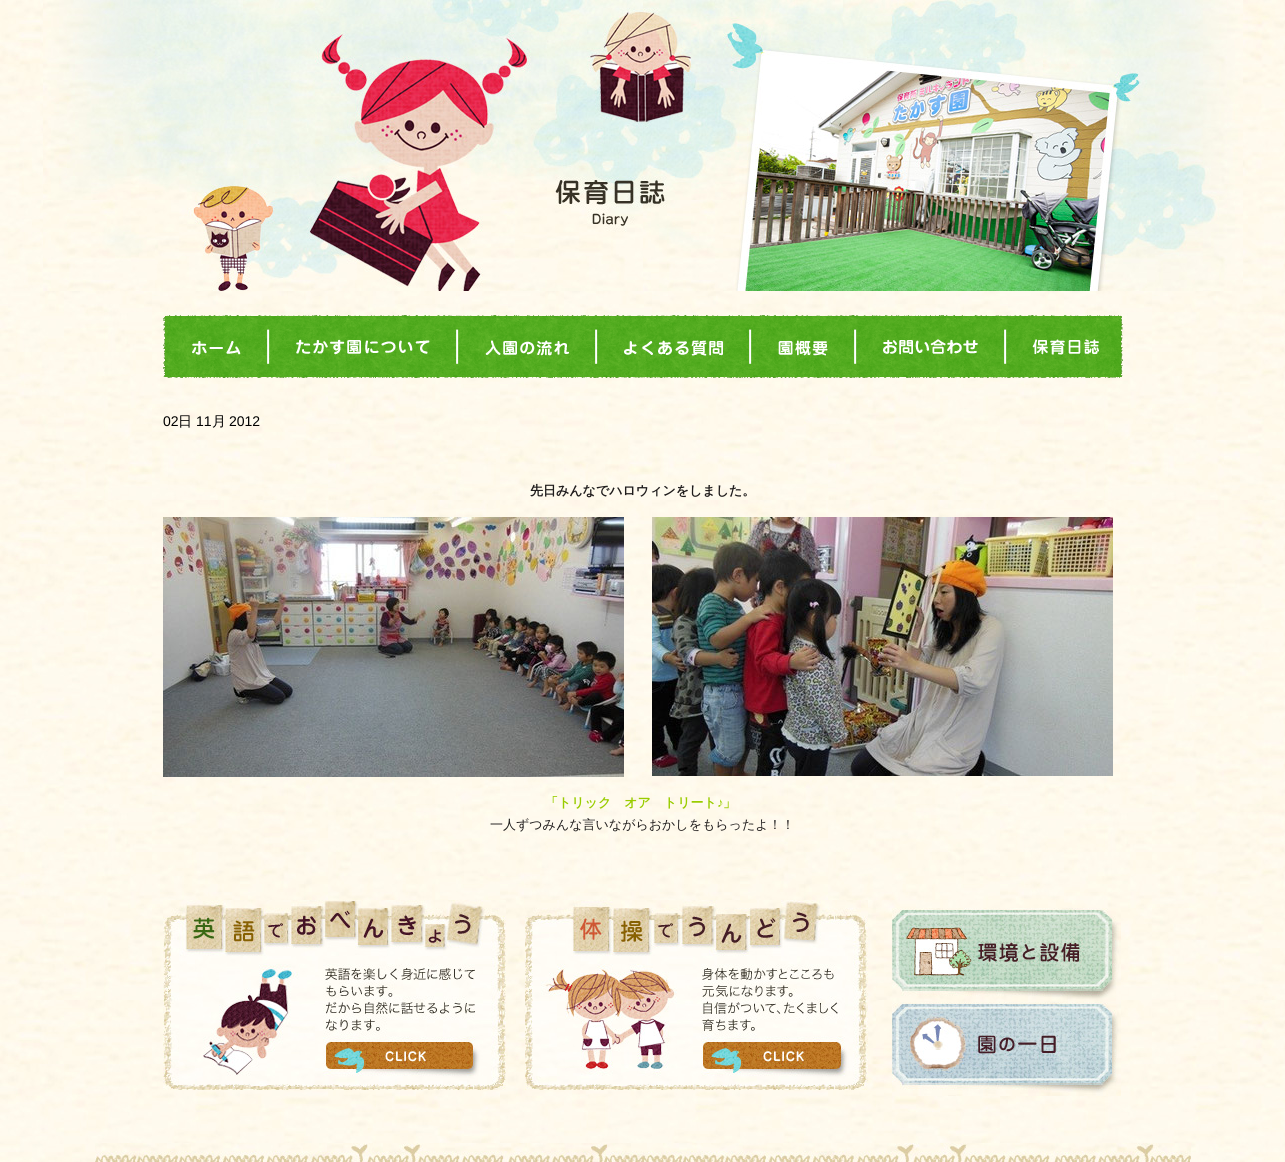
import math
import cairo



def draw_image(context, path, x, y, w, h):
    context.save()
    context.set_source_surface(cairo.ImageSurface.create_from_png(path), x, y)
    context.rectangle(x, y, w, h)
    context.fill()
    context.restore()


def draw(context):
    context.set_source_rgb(1, 1, 1)
    context.paint()
    draw_image(context, "images/1.png", 0, 0, 1285, 1162)
    draw_image(context, "images/2.png", 43, 0, 1200, 291)
    draw_image(context, "images/3.png", 163, 315, 105, 63)
    draw_image(context, "images/4.png", 268, 315, 189, 63)
    draw_image(context, "images/5.png", 457, 315, 139, 63)
    draw_image(context, "images/6.png", 596, 315, 154, 63)
    draw_image(context, "images/7.png", 750, 315, 105, 63)
    draw_image(context, "images/8.png", 855, 315, 150, 63)
    draw_image(context, "images/9.png", 1005, 315, 118, 63)
    draw_image(context, "images/10.png", 163, 517, 461, 260)
    draw_image(context, "images/11.png", 652, 517, 461, 259)
    draw_image(context, "images/12.png", 163, 900, 343, 190)
    draw_image(context, "images/13.png", 525, 900, 343, 190)
    draw_image(context, "images/14.png", 892, 908, 229, 94)
    draw_image(context, "images/15.png", 892, 1002, 229, 94)
    draw_image(context, "images/16.png", 95, 1143, 1096, 19)
    context.select_font_face("Liberation Sans")
    context.set_font_size(14)
    context.set_source_rgb(0, 0, 0)
    context.move_to(163, 426)
    context.show_text("02")
    context.select_font_face("WenQuanYi Zen Hei Medium")
    context.move_to(178, 426)
    context.show_text("日")
    context.select_font_face("Liberation Sans")
    context.move_to(196, 426)
    context.show_text("11")
    context.select_font_face("WenQuanYi Zen Hei Medium")
    context.move_to(212, 426)
    context.show_text("月")
    context.select_font_face("Liberation Sans")
    context.move_to(229, 426)
    context.show_text("2012")
    context.select_font_face("WenQuanYi Zen Hei", cairo.FontSlant.NORMAL, cairo.FontWeight.BOLD)
    context.set_font_size(13)
    context.set_source_rgb(31 / 255, 28 / 255, 28 / 255)
    context.move_to(530, 495)
    context.show_text("先日みんなでハロウィンをしました。")
    context.set_source_rgb(153 / 255, 204 / 255, 0)
    context.move_to(545, 807)
    context.show_text("「トリック　オア　トリート")
    context.select_font_face("Liberation Sans", cairo.FontSlant.NORMAL, cairo.FontWeight.BOLD)
    context.move_to(717, 807)
    context.show_text("♪")
    context.select_font_face("WenQuanYi Zen Hei", cairo.FontSlant.NORMAL, cairo.FontWeight.BOLD)
    context.move_to(723, 807)
    context.show_text("」")
    context.select_font_face("WenQuanYi Zen Hei Medium")
    context.set_source_rgb(31 / 255, 28 / 255, 28 / 255)
    context.move_to(490, 829)
    context.show_text("一人ずつみんな言いながらおかしをもらったよ！！")


surface = cairo.ImageSurface(cairo.Format.RGB24, 1285, 1162)
context = cairo.Context(surface)
options = cairo.FontOptions()
options.set_hint_metrics(cairo.HintMetrics.OFF)
options.set_hint_style(cairo.HintStyle.NONE)
context.set_font_options(options)
context.set_miter_limit(4)
draw(context)
surface.write_to_png("out.png")
